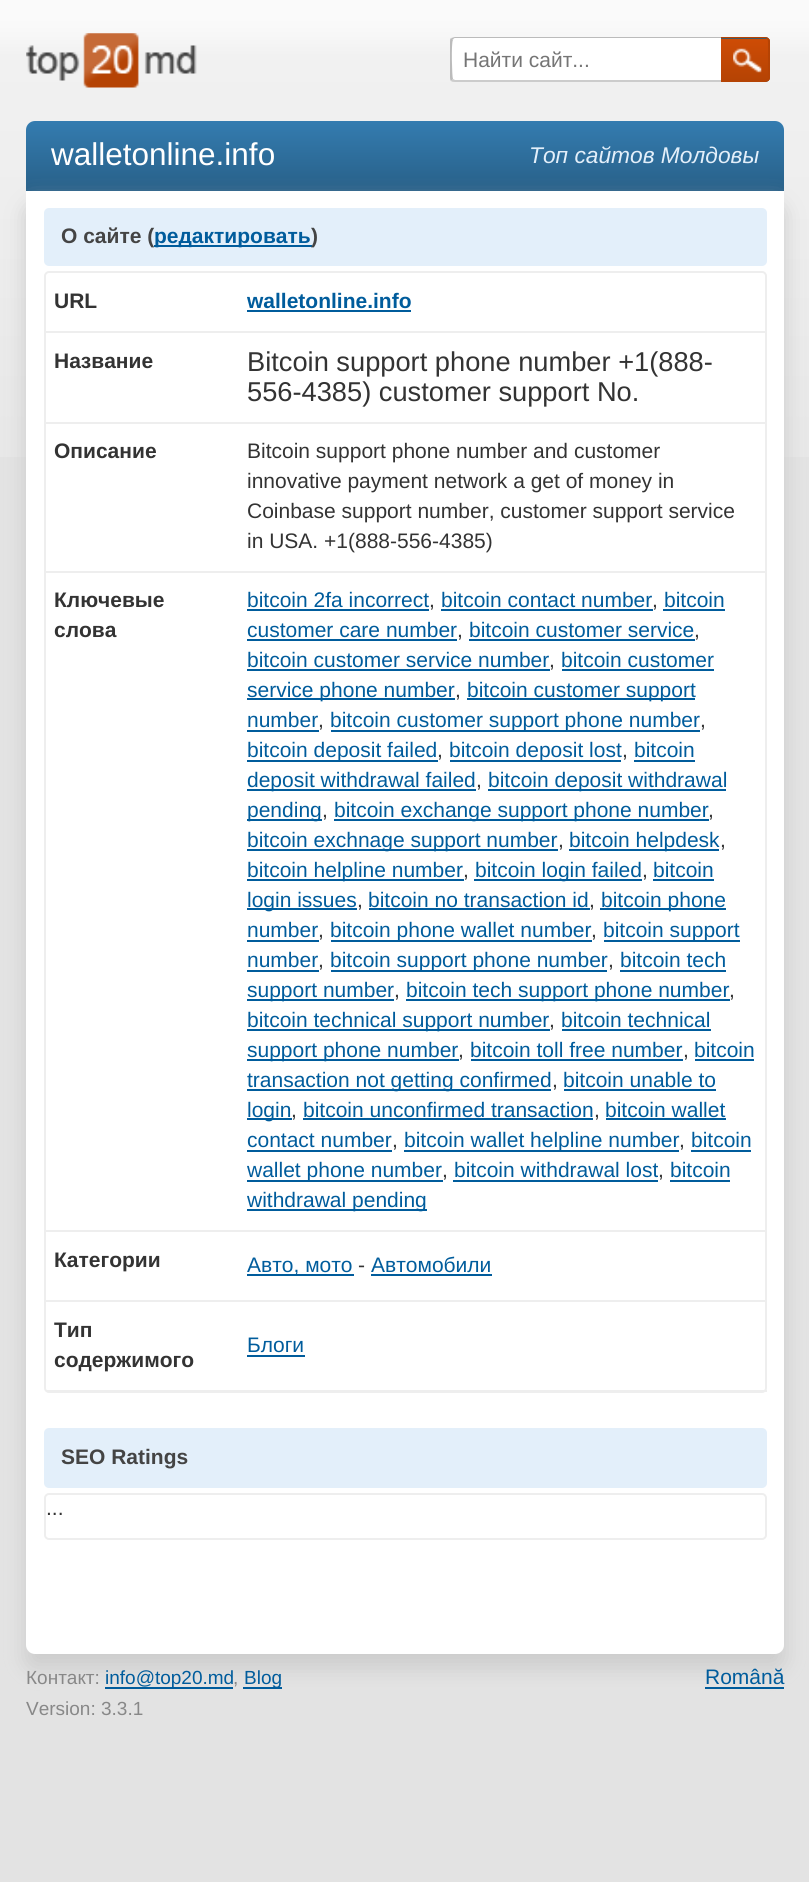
import math
import cairo



def rounded_rect(context, x, y, w, h, r):
    context.new_sub_path()
    for i, (u, v) in enumerate([(x + w - r, y + h - r), (x + r, y + h - r), (x + r, y + r), (x + w - r, y + r)]):
        context.arc(u, v, r, i * math.pi / 2, (i + 1) * math.pi / 2)
    context.close_path()


def draw_shadow(context, x, y, w, h, r, blur, alpha):
    context.push_group_with_content(cairo.Content.ALPHA)
    context.set_operator(cairo.Operator.SOURCE)
    for i in range(15, -16, -2):
        e = blur * i / 6
        if min(w, h) + 2 * e > 0:
            context.set_source_rgba(0, 0, 0, alpha * math.erfc((i - 1) / 8.5) / 2)
            rounded_rect(context, x - e, y - e, w + 2 * e, h + 2 * e, max(0, min(r + e + blur * .6, min(w, h) / 2 + e)))
            context.fill()
    context.mask(context.pop_group())


def draw_image(context, path, x, y, w, h):
    context.save()
    context.set_source_surface(cairo.ImageSurface.create_from_png(path), x, y)
    context.rectangle(x, y, w, h)
    context.fill()
    context.restore()


def draw(context):
    context.set_source_rgb(227 / 255, 227 / 255, 227 / 255)
    context.paint()
    draw_image(context, "images/1.png", 0, 0, 809, 457)
    draw_image(context, "images/2.png", 26, 33, 171, 55)
    context.set_source_rgb(1, 1, 1)
    rounded_rect(context, 450, 37, 317, 45, 5)
    context.fill()
    context.set_source_rgb(187 / 255, 187 / 255, 187 / 255)
    context.new_path()
    context.move_to(455, 37)
    context.line_to(761, 37)
    context.curve_to(764, 37, 766, 39, 766, 42)
    context.curve_to(766, 40, 764, 38, 761, 38)
    context.line_to(455, 38)
    context.curve_to(454, 38, 453, 39, 453, 40)
    context.line_to(451, 38)
    context.curve_to(452, 38, 454, 37, 455, 37)
    context.close_path()
    context.fill()
    context.set_source_rgb(204 / 255, 204 / 255, 204 / 255)
    context.new_path()
    context.move_to(453, 79)
    context.line_to(451, 81)
    context.curve_to(452, 82, 454, 82, 455, 82)
    context.line_to(761, 82)
    context.curve_to(764, 82, 766, 80, 766, 77)
    context.curve_to(766, 79, 764, 80, 761, 80)
    context.line_to(455, 80)
    context.close_path()
    context.fill()
    context.set_source_rgb(187 / 255, 187 / 255, 187 / 255)
    context.new_path()
    context.move_to(453, 79)
    context.line_to(451, 81)
    context.curve_to(450, 80, 450, 78, 450, 77)
    context.line_to(450, 42)
    context.curve_to(450, 40, 450, 39, 451, 38)
    context.line_to(453, 40)
    context.curve_to(451, 42, 452, 78, 453, 79)
    context.close_path()
    context.fill()
    context.set_source_rgb(67 / 255, 90 / 255, 102 / 255)
    context.new_path()
    context.move_to(721, 37)
    context.line_to(765, 37)
    context.curve_to(768, 37, 770, 39, 770, 42)
    context.line_to(770, 77)
    context.curve_to(770, 80, 768, 82, 765, 82)
    context.line_to(721, 82)
    context.close_path()
    context.fill()
    context.save()
    context.new_path()
    context.move_to(721, 37)
    context.line_to(765, 37)
    context.curve_to(768, 37, 770, 39, 770, 42)
    context.line_to(770, 77)
    context.curve_to(770, 80, 768, 82, 765, 82)
    context.line_to(721, 82)
    context.close_path()
    context.clip()
    gradient = cairo.LinearGradient(745, 39, 745, 81)
    gradient.add_color_stop_rgba(0, 206 / 255, 76 / 255, 5 / 255, 1)
    gradient.add_color_stop_rgba(1, 181 / 255, 67 / 255, 4 / 255, 1)
    context.set_source(gradient)
    context.rectangle(721, 39, 49, 42)
    context.fill()
    context.restore()
    context.set_source_rgb(181 / 255, 67 / 255, 4 / 255)
    context.set_fill_rule(cairo.FillRule.EVEN_ODD)
    context.new_path()
    context.move_to(721, 37)
    context.line_to(765, 37)
    context.curve_to(768, 37, 770, 39, 770, 42)
    context.line_to(770, 77)
    context.curve_to(770, 80, 768, 82, 765, 82)
    context.line_to(721, 82)
    context.close_path()
    context.move_to(721, 38)
    context.line_to(765, 38)
    context.curve_to(767, 38, 768, 40, 768, 42)
    context.line_to(768, 77)
    context.curve_to(768, 79, 767, 80, 765, 80)
    context.line_to(721, 80)
    context.close_path()
    context.fill()
    draw_image(context, "images/3.png", 733, 48, 29, 25)
    gradient = cairo.LinearGradient(405, 121, 405, 191)
    gradient.add_color_stop_rgba(0, 52 / 255, 124 / 255, 176 / 255, 1)
    gradient.add_color_stop_rgba(1, 40 / 255, 96 / 255, 136 / 255, 1)
    context.set_source(gradient)
    context.new_path()
    context.move_to(35, 121)
    context.line_to(775, 121)
    context.curve_to(780, 121, 784, 125, 784, 130)
    context.line_to(784, 191)
    context.line_to(26, 191)
    context.line_to(26, 130)
    context.curve_to(26, 125, 30, 121, 35, 121)
    context.close_path()
    context.fill()
    context.set_source_rgb(204 / 255, 204 / 255, 204 / 255)
    draw_shadow(context, 26, 205, 758, 1463, 9, 10.5, 1)
    context.set_source_rgb(1, 1, 1)
    context.new_path()
    context.move_to(26, 191)
    context.line_to(784, 191)
    context.line_to(784, 1645)
    context.curve_to(784, 1650, 780, 1654, 775, 1654)
    context.line_to(35, 1654)
    context.curve_to(30, 1654, 26, 1650, 26, 1645)
    context.close_path()
    context.fill()
    context.set_source_rgb(227 / 255, 239 / 255, 250 / 255)
    rounded_rect(context, 44, 208, 723, 58, 5)
    context.fill()
    rounded_rect(context, 45, 272, 721, 1120, 4)
    context.set_source_rgb(238 / 255, 238 / 255, 238 / 255)
    context.stroke()
    context.rectangle(46, 331, 721, 2)
    context.fill()
    context.set_source_rgb(0, 92 / 255, 156 / 255)
    context.rectangle(247, 310, 164, 2)
    context.fill()
    context.set_source_rgb(238 / 255, 238 / 255, 238 / 255)
    context.rectangle(46, 422, 721, 2)
    context.fill()
    context.rectangle(46, 571, 721, 2)
    context.fill()
    context.rectangle(46, 1230, 721, 2)
    context.fill()
    context.set_source_rgb(0, 92 / 255, 156 / 255)
    context.rectangle(247, 609, 182, 2)
    context.fill()
    context.rectangle(441, 609, 212, 2)
    context.fill()
    context.rectangle(663, 609, 62, 2)
    context.fill()
    context.rectangle(247, 639, 210, 2)
    context.fill()
    context.rectangle(469, 639, 226, 2)
    context.fill()
    context.rectangle(247, 669, 303, 2)
    context.fill()
    context.rectangle(562, 669, 152, 2)
    context.fill()
    context.rectangle(247, 698, 208, 2)
    context.fill()
    context.rectangle(467, 698, 228, 2)
    context.fill()
    context.rectangle(247, 730, 72, 2)
    context.fill()
    context.rectangle(331, 730, 369, 2)
    context.fill()
    context.rectangle(247, 760, 191, 2)
    context.fill()
    context.rectangle(450, 760, 171, 2)
    context.fill()
    context.rectangle(634, 760, 61, 2)
    context.fill()
    context.rectangle(247, 789, 229, 2)
    context.fill()
    context.rectangle(488, 789, 238, 2)
    context.fill()
    context.rectangle(247, 819, 75, 2)
    context.fill()
    context.rectangle(334, 819, 375, 2)
    context.fill()
    context.rectangle(247, 849, 311, 2)
    context.fill()
    context.rectangle(569, 849, 150, 2)
    context.fill()
    context.rectangle(247, 879, 217, 2)
    context.fill()
    context.rectangle(474, 879, 168, 2)
    context.fill()
    context.rectangle(653, 879, 61, 2)
    context.fill()
    context.rectangle(247, 908, 110, 2)
    context.fill()
    context.rectangle(369, 908, 221, 2)
    context.fill()
    context.rectangle(600, 908, 126, 2)
    context.fill()
    context.rectangle(247, 940, 72, 2)
    context.fill()
    context.rectangle(331, 940, 261, 2)
    context.fill()
    context.rectangle(604, 940, 136, 2)
    context.fill()
    context.rectangle(247, 970, 72, 2)
    context.fill()
    context.rectangle(331, 970, 276, 2)
    context.fill()
    context.rectangle(620, 970, 106, 2)
    context.fill()
    context.rectangle(247, 999, 147, 2)
    context.fill()
    context.rectangle(406, 999, 324, 2)
    context.fill()
    context.rectangle(247, 1029, 303, 2)
    context.fill()
    context.rectangle(562, 1029, 149, 2)
    context.fill()
    context.rectangle(247, 1059, 212, 2)
    context.fill()
    context.rectangle(471, 1059, 212, 2)
    context.fill()
    context.rectangle(695, 1059, 59, 2)
    context.fill()
    context.rectangle(247, 1089, 304, 2)
    context.fill()
    context.rectangle(564, 1089, 152, 2)
    context.fill()
    context.rectangle(247, 1118, 45, 2)
    context.fill()
    context.rectangle(303, 1118, 290, 2)
    context.fill()
    context.rectangle(606, 1118, 120, 2)
    context.fill()
    context.rectangle(247, 1150, 145, 2)
    context.fill()
    context.rectangle(404, 1150, 275, 2)
    context.fill()
    context.rectangle(691, 1150, 60, 2)
    context.fill()
    context.rectangle(247, 1180, 196, 2)
    context.fill()
    context.rectangle(453, 1180, 205, 2)
    context.fill()
    context.rectangle(670, 1180, 60, 2)
    context.fill()
    context.rectangle(247, 1209, 180, 2)
    context.fill()
    context.set_source_rgb(238 / 255, 238 / 255, 238 / 255)
    context.rectangle(46, 1300, 721, 2)
    context.fill()
    context.set_source_rgb(0, 92 / 255, 156 / 255)
    context.rectangle(247, 1274, 107, 2)
    context.fill()
    context.rectangle(371, 1274, 121, 2)
    context.fill()
    context.set_source_rgb(238 / 255, 238 / 255, 238 / 255)
    context.rectangle(238, 1390, 529, 2)
    context.fill()
    context.rectangle(46, 1390, 194, 1)
    context.fill()
    context.set_source_rgb(0, 92 / 255, 156 / 255)
    context.rectangle(247, 1355, 58, 2)
    context.fill()
    context.set_source_rgb(227 / 255, 239 / 255, 250 / 255)
    rounded_rect(context, 44, 1428, 723, 60, 5)
    context.fill()
    rounded_rect(context, 45, 1494, 721, 45, 4)
    context.set_source_rgb(238 / 255, 238 / 255, 238 / 255)
    context.stroke()
    context.set_source_rgb(0, 92 / 255, 156 / 255)
    context.rectangle(105, 1687, 128, 2)
    context.fill()
    context.rectangle(243, 1687, 39, 2)
    context.fill()
    context.rectangle(705, 1687, 79, 2)
    context.fill()
    context.select_font_face("Liberation Sans")
    context.set_font_size(21)
    context.set_source_rgb(117 / 255, 117 / 255, 117 / 255)
    context.move_to(463, 67)
    context.show_text("Найти сайт...")
    context.set_font_size(31.5)
    context.set_source_rgb(1, 1, 1)
    context.move_to(51, 165)
    context.show_text("walletonline.info")
    context.select_font_face("Liberation Sans", cairo.FontSlant.ITALIC)
    context.set_font_size(22.75)
    context.set_source_rgb(227 / 255, 239 / 255, 250 / 255)
    context.move_to(529, 163)
    context.show_text("Топ сайтов Молдовы")
    context.select_font_face("Liberation Sans", cairo.FontSlant.NORMAL, cairo.FontWeight.BOLD)
    context.set_font_size(21)
    context.set_source_rgb(68 / 255, 68 / 255, 68 / 255)
    context.move_to(61, 243)
    context.show_text("О сайте (")
    context.set_source_rgb(0, 92 / 255, 156 / 255)
    context.rectangle(154, 245, 158, 2)
    context.fill()
    context.move_to(154, 243)
    context.show_text("редактировать")
    context.set_source_rgb(68 / 255, 68 / 255, 68 / 255)
    context.move_to(311, 243)
    context.show_text(")")
    context.set_source_rgb(51 / 255, 51 / 255, 51 / 255)
    context.move_to(54, 308)
    context.show_text("URL")
    context.set_source_rgb(0, 92 / 255, 156 / 255)
    context.move_to(247, 308)
    context.show_text("walletonline.info")
    context.set_source_rgb(51 / 255, 51 / 255, 51 / 255)
    context.move_to(54, 368)
    context.show_text("Название")
    context.select_font_face("Liberation Sans")
    context.set_font_size(27.25)
    context.move_to(247, 371)
    context.show_text("Bitcoin support phone number +1(888-")
    context.move_to(247, 401)
    context.show_text("556-4385) customer support No.")
    context.select_font_face("Liberation Sans", cairo.FontSlant.NORMAL, cairo.FontWeight.BOLD)
    context.set_font_size(21)
    context.move_to(54, 458)
    context.show_text("Описание")
    context.select_font_face("Liberation Sans")
    context.move_to(247, 458)
    context.show_text("Bitcoin support phone number and customer")
    context.move_to(247, 488)
    context.show_text("innovative payment network a get of money in")
    context.move_to(247, 518)
    context.show_text("Coinbase support number, customer support service")
    context.move_to(247, 548)
    context.show_text("in USA. +1(888-556-4385)")
    context.select_font_face("Liberation Sans", cairo.FontSlant.NORMAL, cairo.FontWeight.BOLD)
    context.move_to(54, 607)
    context.show_text("Ключевые")
    context.move_to(54, 637)
    context.show_text("слова")
    context.select_font_face("Liberation Sans")
    context.set_source_rgb(0, 92 / 255, 156 / 255)
    context.move_to(247, 607)
    context.show_text("bitcoin 2fa incorrect")
    context.set_source_rgb(51 / 255, 51 / 255, 51 / 255)
    context.move_to(429, 607)
    context.show_text(",")
    context.set_source_rgb(0, 92 / 255, 156 / 255)
    context.move_to(441, 607)
    context.show_text("bitcoin contact number")
    context.set_source_rgb(51 / 255, 51 / 255, 51 / 255)
    context.move_to(652, 607)
    context.show_text(",")
    context.set_source_rgb(0, 92 / 255, 156 / 255)
    context.move_to(664, 607)
    context.show_text("bitcoin")
    context.move_to(247, 637)
    context.show_text("customer care number")
    context.set_source_rgb(51 / 255, 51 / 255, 51 / 255)
    context.move_to(457, 637)
    context.show_text(",")
    context.set_source_rgb(0, 92 / 255, 156 / 255)
    context.move_to(469, 637)
    context.show_text("bitcoin customer service")
    context.set_source_rgb(51 / 255, 51 / 255, 51 / 255)
    context.move_to(694, 637)
    context.show_text(",")
    context.set_source_rgb(0, 92 / 255, 156 / 255)
    context.move_to(247, 667)
    context.show_text("bitcoin customer service number")
    context.set_source_rgb(51 / 255, 51 / 255, 51 / 255)
    context.move_to(549, 667)
    context.show_text(",")
    context.set_source_rgb(0, 92 / 255, 156 / 255)
    context.move_to(561, 667)
    context.show_text("bitcoin customer")
    context.move_to(247, 697)
    context.show_text("service phone number")
    context.set_source_rgb(51 / 255, 51 / 255, 51 / 255)
    context.move_to(455, 697)
    context.show_text(",")
    context.set_source_rgb(0, 92 / 255, 156 / 255)
    context.move_to(467, 697)
    context.show_text("bitcoin customer support")
    context.move_to(247, 727)
    context.show_text("number")
    context.set_source_rgb(51 / 255, 51 / 255, 51 / 255)
    context.move_to(318, 727)
    context.show_text(",")
    context.set_source_rgb(0, 92 / 255, 156 / 255)
    context.move_to(330, 727)
    context.show_text("bitcoin customer support phone number")
    context.set_source_rgb(51 / 255, 51 / 255, 51 / 255)
    context.move_to(700, 727)
    context.show_text(",")
    context.set_source_rgb(0, 92 / 255, 156 / 255)
    context.move_to(247, 757)
    context.show_text("bitcoin deposit failed")
    context.set_source_rgb(51 / 255, 51 / 255, 51 / 255)
    context.move_to(437, 757)
    context.show_text(",")
    context.set_source_rgb(0, 92 / 255, 156 / 255)
    context.move_to(449, 757)
    context.show_text("bitcoin deposit lost")
    context.set_source_rgb(51 / 255, 51 / 255, 51 / 255)
    context.move_to(622, 757)
    context.show_text(",")
    context.set_source_rgb(0, 92 / 255, 156 / 255)
    context.move_to(634, 757)
    context.show_text("bitcoin")
    context.move_to(247, 787)
    context.show_text("deposit withdrawal failed")
    context.set_source_rgb(51 / 255, 51 / 255, 51 / 255)
    context.move_to(476, 787)
    context.show_text(",")
    context.set_source_rgb(0, 92 / 255, 156 / 255)
    context.move_to(488, 787)
    context.show_text("bitcoin deposit withdrawal")
    context.move_to(247, 817)
    context.show_text("pending")
    context.set_source_rgb(51 / 255, 51 / 255, 51 / 255)
    context.move_to(322, 817)
    context.show_text(",")
    context.set_source_rgb(0, 92 / 255, 156 / 255)
    context.move_to(334, 817)
    context.show_text("bitcoin exchange support phone number")
    context.set_source_rgb(51 / 255, 51 / 255, 51 / 255)
    context.move_to(708, 817)
    context.show_text(",")
    context.set_source_rgb(0, 92 / 255, 156 / 255)
    context.move_to(247, 847)
    context.show_text("bitcoin exchnage support number")
    context.set_source_rgb(51 / 255, 51 / 255, 51 / 255)
    context.move_to(558, 847)
    context.show_text(",")
    context.set_source_rgb(0, 92 / 255, 156 / 255)
    context.move_to(569, 847)
    context.show_text("bitcoin helpdesk")
    context.set_source_rgb(51 / 255, 51 / 255, 51 / 255)
    context.move_to(720, 847)
    context.show_text(",")
    context.set_source_rgb(0, 92 / 255, 156 / 255)
    context.move_to(247, 877)
    context.show_text("bitcoin helpline number")
    context.set_source_rgb(51 / 255, 51 / 255, 51 / 255)
    context.move_to(463, 877)
    context.show_text(",")
    context.set_source_rgb(0, 92 / 255, 156 / 255)
    context.move_to(475, 877)
    context.show_text("bitcoin login failed")
    context.set_source_rgb(51 / 255, 51 / 255, 51 / 255)
    context.move_to(642, 877)
    context.show_text(",")
    context.set_source_rgb(0, 92 / 255, 156 / 255)
    context.move_to(653, 877)
    context.show_text("bitcoin")
    context.move_to(247, 907)
    context.show_text("login issues")
    context.set_source_rgb(51 / 255, 51 / 255, 51 / 255)
    context.move_to(357, 907)
    context.show_text(",")
    context.set_source_rgb(0, 92 / 255, 156 / 255)
    context.move_to(368, 907)
    context.show_text("bitcoin no transaction id")
    context.set_source_rgb(51 / 255, 51 / 255, 51 / 255)
    context.move_to(589, 907)
    context.show_text(",")
    context.set_source_rgb(0, 92 / 255, 156 / 255)
    context.move_to(601, 907)
    context.show_text("bitcoin phone")
    context.move_to(247, 937)
    context.show_text("number")
    context.set_source_rgb(51 / 255, 51 / 255, 51 / 255)
    context.move_to(318, 937)
    context.show_text(",")
    context.set_source_rgb(0, 92 / 255, 156 / 255)
    context.move_to(330, 937)
    context.show_text("bitcoin phone wallet number")
    context.set_source_rgb(51 / 255, 51 / 255, 51 / 255)
    context.move_to(591, 937)
    context.show_text(",")
    context.set_source_rgb(0, 92 / 255, 156 / 255)
    context.move_to(603, 937)
    context.show_text("bitcoin support")
    context.move_to(247, 967)
    context.show_text("number")
    context.set_source_rgb(51 / 255, 51 / 255, 51 / 255)
    context.move_to(318, 967)
    context.show_text(",")
    context.set_source_rgb(0, 92 / 255, 156 / 255)
    context.move_to(330, 967)
    context.show_text("bitcoin support phone number")
    context.set_source_rgb(51 / 255, 51 / 255, 51 / 255)
    context.move_to(608, 967)
    context.show_text(",")
    context.set_source_rgb(0, 92 / 255, 156 / 255)
    context.move_to(620, 967)
    context.show_text("bitcoin tech")
    context.move_to(247, 997)
    context.show_text("support number")
    context.set_source_rgb(51 / 255, 51 / 255, 51 / 255)
    context.move_to(394, 997)
    context.show_text(",")
    context.set_source_rgb(0, 92 / 255, 156 / 255)
    context.move_to(406, 997)
    context.show_text("bitcoin tech support phone number")
    context.set_source_rgb(51 / 255, 51 / 255, 51 / 255)
    context.move_to(729, 997)
    context.show_text(",")
    context.set_source_rgb(0, 92 / 255, 156 / 255)
    context.move_to(247, 1027)
    context.show_text("bitcoin technical support number")
    context.set_source_rgb(51 / 255, 51 / 255, 51 / 255)
    context.move_to(549, 1027)
    context.show_text(",")
    context.set_source_rgb(0, 92 / 255, 156 / 255)
    context.move_to(561, 1027)
    context.show_text("bitcoin technical")
    context.move_to(247, 1057)
    context.show_text("support phone number")
    context.set_source_rgb(51 / 255, 51 / 255, 51 / 255)
    context.move_to(458, 1057)
    context.show_text(",")
    context.set_source_rgb(0, 92 / 255, 156 / 255)
    context.move_to(470, 1057)
    context.show_text("bitcoin toll free number")
    context.set_source_rgb(51 / 255, 51 / 255, 51 / 255)
    context.move_to(683, 1057)
    context.show_text(",")
    context.set_source_rgb(0, 92 / 255, 156 / 255)
    context.move_to(694, 1057)
    context.show_text("bitcoin")
    context.move_to(247, 1087)
    context.show_text("transaction not getting confirmed")
    context.set_source_rgb(51 / 255, 51 / 255, 51 / 255)
    context.move_to(552, 1087)
    context.show_text(",")
    context.set_source_rgb(0, 92 / 255, 156 / 255)
    context.move_to(563, 1087)
    context.show_text("bitcoin unable to")
    context.move_to(247, 1117)
    context.show_text("login")
    context.set_source_rgb(51 / 255, 51 / 255, 51 / 255)
    context.move_to(291, 1117)
    context.show_text(",")
    context.set_source_rgb(0, 92 / 255, 156 / 255)
    context.move_to(303, 1117)
    context.show_text("bitcoin unconfirmed transaction")
    context.set_source_rgb(51 / 255, 51 / 255, 51 / 255)
    context.move_to(594, 1117)
    context.show_text(",")
    context.set_source_rgb(0, 92 / 255, 156 / 255)
    context.move_to(605, 1117)
    context.show_text("bitcoin wallet")
    context.move_to(247, 1147)
    context.show_text("contact number")
    context.set_source_rgb(51 / 255, 51 / 255, 51 / 255)
    context.move_to(392, 1147)
    context.show_text(",")
    context.set_source_rgb(0, 92 / 255, 156 / 255)
    context.move_to(404, 1147)
    context.show_text("bitcoin wallet helpline number")
    context.set_source_rgb(51 / 255, 51 / 255, 51 / 255)
    context.move_to(679, 1147)
    context.show_text(",")
    context.set_source_rgb(0, 92 / 255, 156 / 255)
    context.move_to(691, 1147)
    context.show_text("bitcoin")
    context.move_to(247, 1177)
    context.show_text("wallet phone number")
    context.set_source_rgb(51 / 255, 51 / 255, 51 / 255)
    context.move_to(442, 1177)
    context.show_text(",")
    context.set_source_rgb(0, 92 / 255, 156 / 255)
    context.move_to(454, 1177)
    context.show_text("bitcoin withdrawal lost")
    context.set_source_rgb(51 / 255, 51 / 255, 51 / 255)
    context.move_to(658, 1177)
    context.show_text(",")
    context.set_source_rgb(0, 92 / 255, 156 / 255)
    context.move_to(670, 1177)
    context.show_text("bitcoin")
    context.move_to(247, 1207)
    context.show_text("withdrawal pending")
    context.select_font_face("Liberation Sans", cairo.FontSlant.NORMAL, cairo.FontWeight.BOLD)
    context.set_source_rgb(51 / 255, 51 / 255, 51 / 255)
    context.move_to(54, 1267)
    context.show_text("Категории")
    context.select_font_face("Liberation Sans")
    context.set_source_rgb(0, 92 / 255, 156 / 255)
    context.move_to(247, 1272)
    context.show_text("Авто, мото")
    context.set_source_rgb(51 / 255, 51 / 255, 51 / 255)
    context.move_to(358, 1272)
    context.show_text("-")
    context.set_source_rgb(0, 92 / 255, 156 / 255)
    context.move_to(371, 1272)
    context.show_text("Автомобили")
    context.select_font_face("Liberation Sans", cairo.FontSlant.NORMAL, cairo.FontWeight.BOLD)
    context.set_source_rgb(51 / 255, 51 / 255, 51 / 255)
    context.move_to(54, 1337)
    context.show_text("Тип")
    context.move_to(54, 1367)
    context.show_text("содержимого")
    context.select_font_face("Liberation Sans")
    context.set_source_rgb(0, 92 / 255, 156 / 255)
    context.move_to(247, 1352)
    context.show_text("Блоги")
    context.select_font_face("Liberation Sans", cairo.FontSlant.NORMAL, cairo.FontWeight.BOLD)
    context.set_source_rgb(68 / 255, 68 / 255, 68 / 255)
    context.move_to(61, 1464)
    context.show_text("SEO Ratings")
    context.select_font_face("Liberation Sans")
    context.set_source_rgb(51 / 255, 51 / 255, 51 / 255)
    context.move_to(46, 1515)
    context.show_text("...")
    context.set_font_size(19)
    context.set_source_rgb(136 / 255, 136 / 255, 136 / 255)
    context.move_to(26, 1684)
    context.show_text("Контакт:")
    context.set_source_rgb(0, 92 / 255, 156 / 255)
    context.move_to(105, 1684)
    context.show_text("info@top20.md")
    context.set_source_rgb(136 / 255, 136 / 255, 136 / 255)
    context.move_to(233, 1684)
    context.show_text(",")
    context.set_source_rgb(0, 92 / 255, 156 / 255)
    context.move_to(244, 1684)
    context.show_text("Blog")
    context.set_source_rgb(136 / 255, 136 / 255, 136 / 255)
    context.move_to(26, 1715)
    context.show_text("Version: 3.3.1")
    context.set_font_size(21)
    context.set_source_rgb(0, 92 / 255, 156 / 255)
    context.move_to(705, 1684)
    context.show_text("Română")


surface = cairo.ImageSurface(cairo.Format.RGB24, 809, 1882)
context = cairo.Context(surface)
options = cairo.FontOptions()
options.set_hint_metrics(cairo.HintMetrics.OFF)
options.set_hint_style(cairo.HintStyle.NONE)
context.set_font_options(options)
context.set_miter_limit(4)
draw(context)
surface.write_to_png("out.png")
